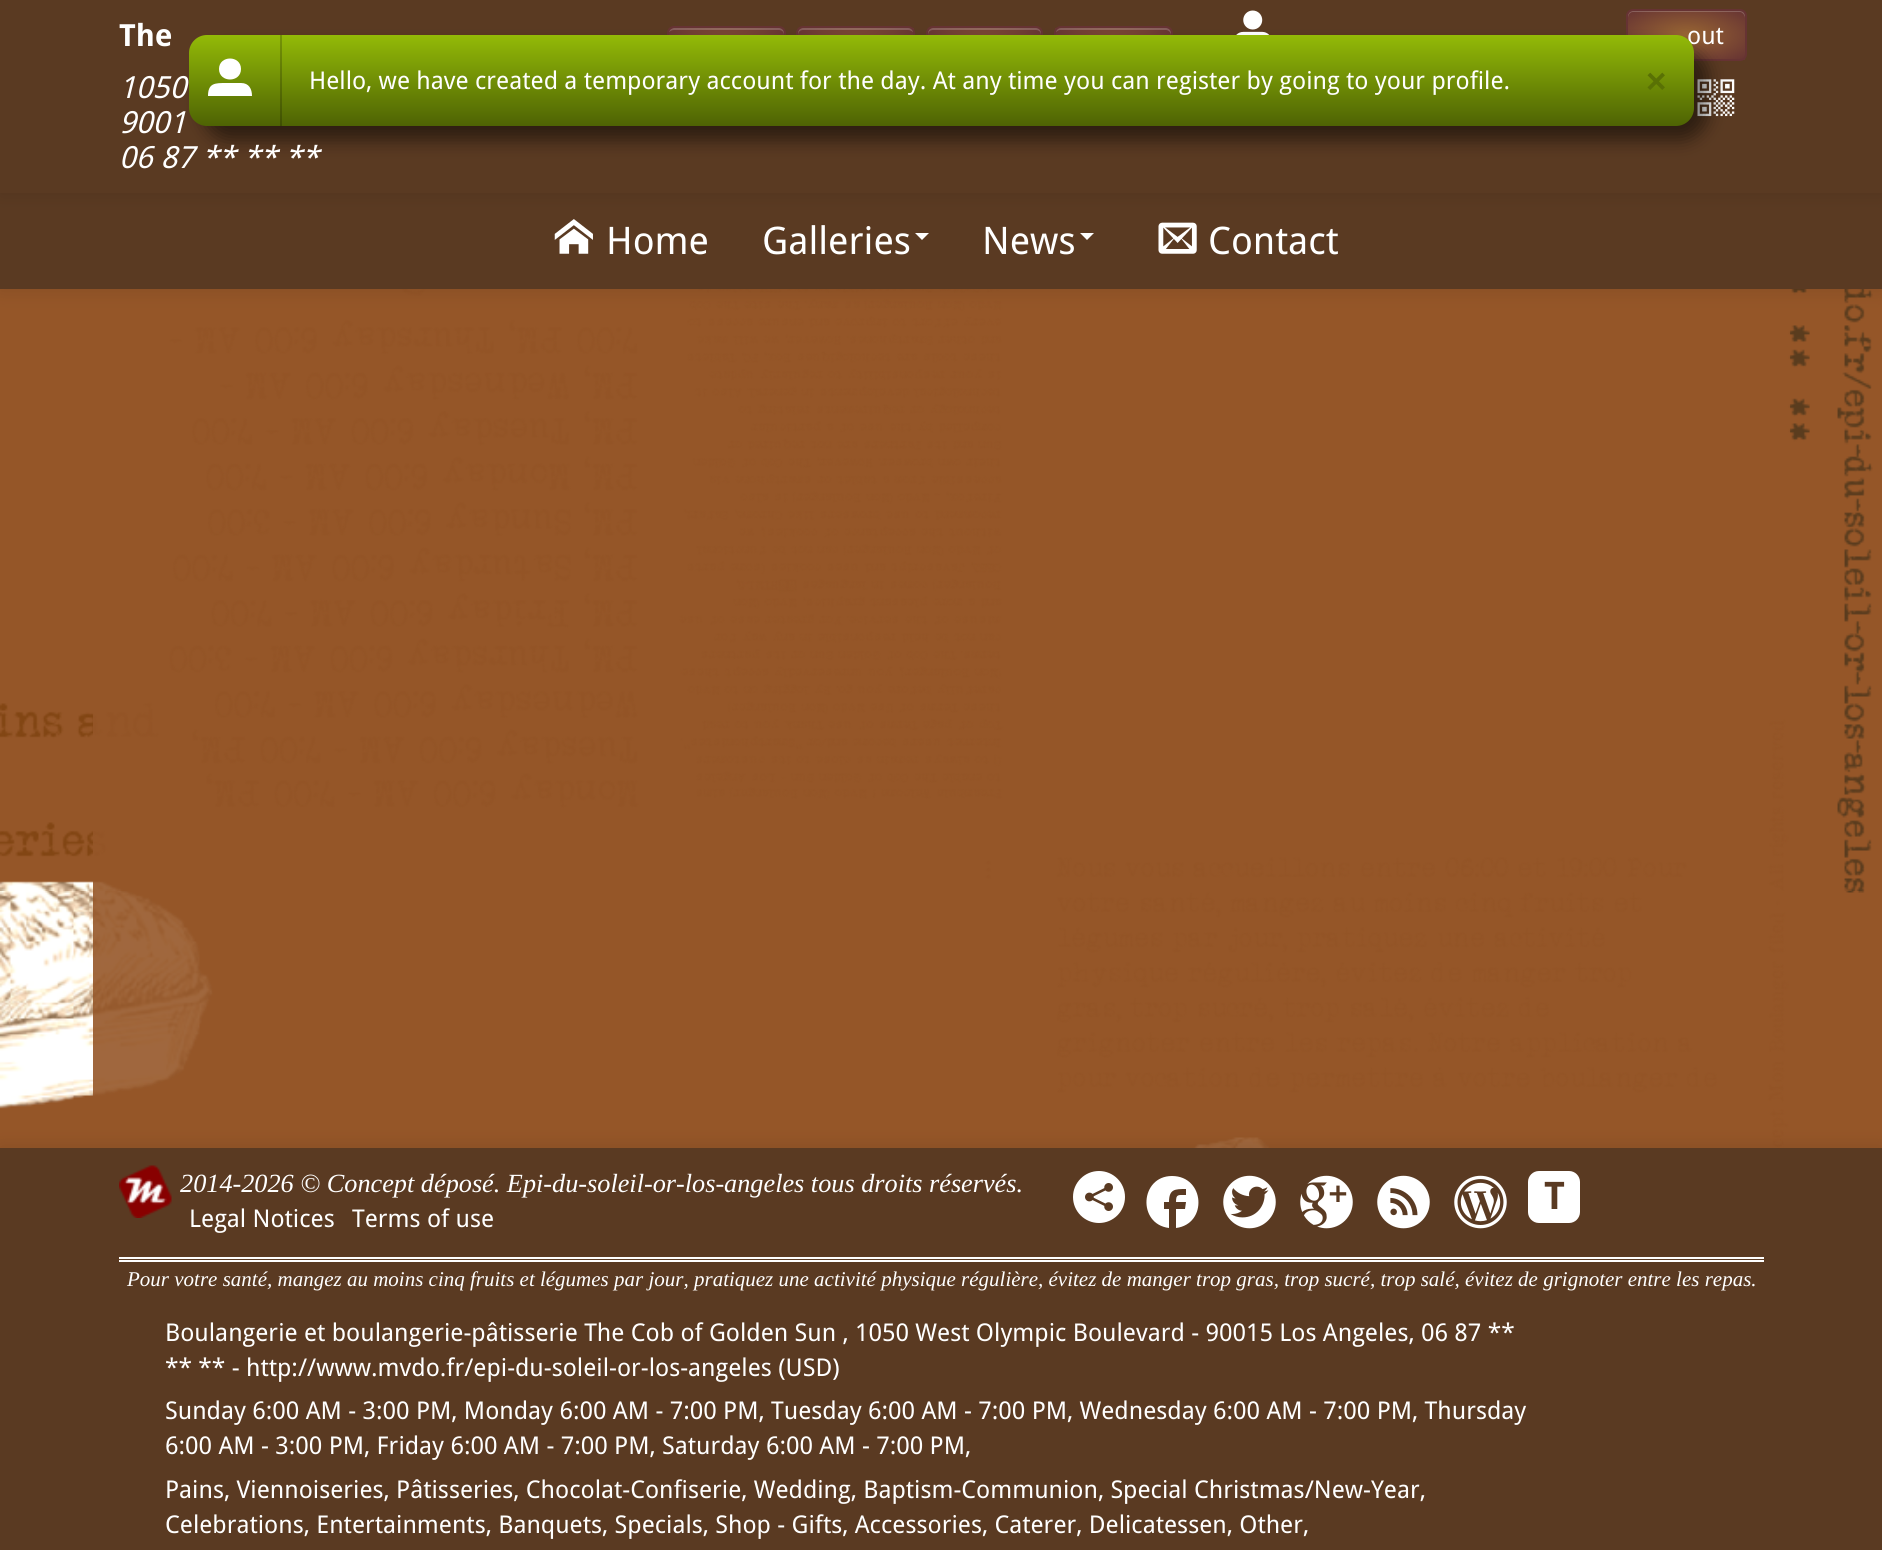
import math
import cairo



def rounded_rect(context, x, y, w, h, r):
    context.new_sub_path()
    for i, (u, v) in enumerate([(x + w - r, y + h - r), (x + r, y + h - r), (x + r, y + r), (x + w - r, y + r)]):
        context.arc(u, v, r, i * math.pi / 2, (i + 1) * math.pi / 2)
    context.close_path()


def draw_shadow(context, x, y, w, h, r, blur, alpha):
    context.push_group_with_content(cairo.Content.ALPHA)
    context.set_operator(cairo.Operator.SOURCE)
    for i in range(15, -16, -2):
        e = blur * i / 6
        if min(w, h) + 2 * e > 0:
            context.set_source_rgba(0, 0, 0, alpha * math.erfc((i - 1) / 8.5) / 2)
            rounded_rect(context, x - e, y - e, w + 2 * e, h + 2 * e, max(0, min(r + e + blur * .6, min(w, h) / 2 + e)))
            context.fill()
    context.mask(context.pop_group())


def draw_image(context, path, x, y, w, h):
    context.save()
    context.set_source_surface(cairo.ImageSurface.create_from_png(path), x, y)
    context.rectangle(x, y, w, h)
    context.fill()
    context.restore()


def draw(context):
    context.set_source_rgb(149 / 255, 86 / 255, 40 / 255)
    context.paint()
    draw_image(context, "images/1.png", 0, 289, 1873, 859)
    context.set_source_rgb(0, 0, 0)
    draw_shadow(context, 0, 194, 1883, 97, 0, 9, 0.1)
    context.set_source_rgb(90 / 255, 58 / 255, 34 / 255)
    context.rectangle(0, 193, 1882, 96)
    context.fill()
    draw_image(context, "images/4.png", 554, 219, 39, 35)
    context.set_source_rgb(0, 0, 0)
    draw_shadow(context, 0, 2, 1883, 192, 0, 9, 0.1)
    context.set_source_rgb(90 / 255, 58 / 255, 34 / 255)
    context.rectangle(0, 0, 1882, 193)
    context.fill()
    gradient = cairo.RadialGradient(0, 0, 0, 0, 0, 1)
    gradient.set_matrix(cairo.Matrix(1 / 82, 0, 0, 1 / 64, -1 * 726 / 82, -1 * 74 / 64))
    gradient.add_color_stop_rgba(0, 153 / 255, 102 / 255, 51 / 255, 1)
    gradient.add_color_stop_rgba(1, 102 / 255, 51 / 255, 51 / 255, 1)
    context.set_source(gradient)
    context.rectangle(669, 28, 115, 7)
    context.fill()
    context.set_source_rgba(1, 1, 1, 0.2)
    context.new_path()
    context.move_to(674, 30)
    context.line_to(779, 30)
    context.curve_to(782, 30, 784, 32, 784, 35)
    context.line_to(784, 33)
    context.curve_to(784, 30, 782, 28, 779, 28)
    context.line_to(674, 28)
    context.curve_to(672, 28, 669, 30, 669, 32)
    context.curve_to(670, 31, 672, 30, 674, 30)
    context.close_path()
    context.fill()
    rounded_rect(context, 668, 27, 117, 93, 6)
    context.set_source_rgb(102 / 255, 51 / 255, 51 / 255)
    context.stroke()
    gradient = cairo.RadialGradient(0, 0, 0, 0, 0, 1)
    gradient.set_matrix(cairo.Matrix(1 / 82, 0, 0, 1 / 64, -1 * 856 / 82, -1 * 74 / 64))
    gradient.add_color_stop_rgba(0, 153 / 255, 102 / 255, 51 / 255, 1)
    gradient.add_color_stop_rgba(1, 102 / 255, 51 / 255, 51 / 255, 1)
    context.set_source(gradient)
    context.rectangle(798, 28, 116, 7)
    context.fill()
    context.set_source_rgba(1, 1, 1, 0.2)
    context.new_path()
    context.move_to(803, 30)
    context.line_to(908, 30)
    context.curve_to(911, 30, 914, 32, 914, 35)
    context.line_to(914, 33)
    context.curve_to(914, 30, 912, 28, 909, 28)
    context.line_to(803, 28)
    context.curve_to(800, 28, 798, 30, 798, 33)
    context.line_to(798, 35)
    context.curve_to(798, 32, 800, 30, 803, 30)
    context.close_path()
    context.fill()
    rounded_rect(context, 797, 27, 117, 93, 6)
    context.set_source_rgb(102 / 255, 51 / 255, 51 / 255)
    context.stroke()
    gradient = cairo.RadialGradient(0, 0, 0, 0, 0, 1)
    gradient.set_matrix(cairo.Matrix(1 / 80, 0, 0, 1 / 64, -1 * 984 / 80, -1 * 74 / 64))
    gradient.add_color_stop_rgba(0, 153 / 255, 102 / 255, 51 / 255, 1)
    gradient.add_color_stop_rgba(1, 102 / 255, 51 / 255, 51 / 255, 1)
    context.set_source(gradient)
    context.rectangle(928, 28, 113, 7)
    context.fill()
    context.set_source_rgba(1, 1, 1, 0.2)
    context.new_path()
    context.move_to(933, 30)
    context.line_to(1036, 30)
    context.curve_to(1039, 30, 1041, 32, 1041, 35)
    context.line_to(1041, 33)
    context.curve_to(1041, 30, 1039, 28, 1036, 28)
    context.line_to(933, 28)
    context.curve_to(930, 28, 928, 30, 928, 33)
    context.line_to(928, 35)
    context.curve_to(928, 32, 930, 30, 933, 30)
    context.close_path()
    context.fill()
    rounded_rect(context, 927, 27, 115, 93, 6)
    context.set_source_rgb(102 / 255, 51 / 255, 51 / 255)
    context.stroke()
    gradient = cairo.RadialGradient(0, 0, 0, 0, 0, 1)
    gradient.set_matrix(cairo.Matrix(1 / 82, 0, 0, 1 / 64, -1 * 1113 / 82, -1 * 74 / 64))
    gradient.add_color_stop_rgba(0, 153 / 255, 102 / 255, 51 / 255, 1)
    gradient.add_color_stop_rgba(1, 102 / 255, 51 / 255, 51 / 255, 1)
    context.set_source(gradient)
    context.rectangle(1055, 28, 116, 7)
    context.fill()
    context.set_source_rgba(1, 1, 1, 0.2)
    context.new_path()
    context.move_to(1060, 30)
    context.line_to(1166, 30)
    context.curve_to(1168, 30, 1171, 32, 1171, 35)
    context.line_to(1171, 33)
    context.curve_to(1171, 30, 1169, 28, 1166, 28)
    context.line_to(1060, 28)
    context.curve_to(1057, 28, 1055, 30, 1055, 33)
    context.line_to(1055, 35)
    context.curve_to(1055, 32, 1058, 30, 1060, 30)
    context.close_path()
    context.fill()
    rounded_rect(context, 1055, 27, 117, 93, 6)
    context.set_source_rgb(102 / 255, 51 / 255, 51 / 255)
    context.stroke()
    draw_image(context, "images/2.png", 1236, 10, 34, 25)
    gradient = cairo.RadialGradient(0, 0, 0, 0, 0, 1)
    gradient.set_matrix(cairo.Matrix(1 / 83, 0, 0, 1 / 35, -1 * 1686 / 83, -1 * 35 / 35))
    gradient.add_color_stop_rgba(0, 153 / 255, 102 / 255, 51 / 255, 1)
    gradient.add_color_stop_rgba(1, 102 / 255, 51 / 255, 51 / 255, 1)
    context.set_source(gradient)
    context.rectangle(1628, 11, 117, 49)
    context.fill()
    context.set_source_rgba(1, 1, 1, 0.2)
    context.new_path()
    context.move_to(1633, 12)
    context.line_to(1740, 12)
    context.curve_to(1742, 12, 1745, 15, 1745, 18)
    context.line_to(1745, 16)
    context.curve_to(1745, 13, 1743, 11, 1740, 11)
    context.line_to(1633, 11)
    context.curve_to(1630, 11, 1628, 13, 1628, 16)
    context.line_to(1628, 18)
    context.curve_to(1628, 15, 1630, 12, 1633, 12)
    context.close_path()
    context.fill()
    rounded_rect(context, 1627, 10, 119, 50, 6)
    context.set_source_rgb(102 / 255, 51 / 255, 51 / 255)
    context.stroke()
    draw_image(context, "images/3.png", 1697, 79, 38, 38)
    context.set_source_rgb(0, 0, 0)
    draw_shadow(context, 203, 49, 1505, 91, 26, 9, 0.5)
    context.set_source_rgb(1, 1, 1)
    context.new_path()
    context.move_to(915, 233)
    context.line_to(929, 233)
    context.line_to(922, 240)
    context.close_path()
    context.fill()
    context.new_path()
    context.move_to(1080, 233)
    context.line_to(1094, 233)
    context.line_to(1087, 240)
    context.close_path()
    context.fill()
    draw_image(context, "images/5.png", 1158, 222, 39, 32)
    context.set_source_rgb(0, 0, 0)
    draw_shadow(context, 0, 1146, 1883, 403, 0, 9, 0.1)
    context.set_source_rgb(90 / 255, 58 / 255, 34 / 255)
    context.rectangle(0, 1148, 1882, 402)
    context.fill()
    draw_image(context, "images/6.png", 119, 1165, 53, 53)
    context.set_source_rgb(1, 1, 1)
    context.arc(1099, 1197, 26, 0, 2 * math.pi)
    context.fill()
    context.new_path()
    context.move_to(1172, 1176)
    context.curve_to(1205, 1176, 1208, 1224, 1176, 1228)
    context.line_to(1176, 1209)
    context.line_to(1185, 1209)
    context.line_to(1186, 1202)
    context.line_to(1176, 1202)
    context.curve_to(1176, 1194, 1178, 1195, 1186, 1195)
    context.line_to(1186, 1189)
    context.curve_to(1175, 1189, 1169, 1189, 1169, 1202)
    context.line_to(1164, 1202)
    context.line_to(1164, 1209)
    context.line_to(1169, 1209)
    context.line_to(1169, 1228)
    context.curve_to(1137, 1224, 1140, 1176, 1172, 1176)
    context.close_path()
    context.fill()
    draw_image(context, "images/7.png", 1223, 1175, 53, 54)
    draw_image(context, "images/8.png", 1300, 1175, 53, 54)
    draw_image(context, "images/9.png", 1377, 1175, 53, 54)
    draw_image(context, "images/10.png", 1454, 1175, 53, 54)
    rounded_rect(context, 1528, 1171, 52, 52, 11)
    context.fill()
    draw_image(context, "images/11.png", 1085, 1183, 28, 28)
    context.rectangle(119, 1257, 1645, 2)
    context.fill()
    context.rectangle(119, 1260, 1645, 2)
    context.fill()
    context.select_font_face("Droid Sans", cairo.FontSlant.NORMAL, cairo.FontWeight.BOLD)
    context.set_font_size(30.5)
    context.move_to(119, 46)
    context.show_text("The")
    context.select_font_face("Droid Sans", cairo.FontSlant.ITALIC)
    context.move_to(119, 98)
    context.show_text("1050")
    context.move_to(119, 133)
    context.show_text("9001")
    context.move_to(119, 168)
    context.show_text("06 87 ** ** **")
    context.select_font_face("Droid Sans")
    context.set_font_size(24.5)
    context.move_to(1687, 44)
    context.show_text("out")
    gradient = cairo.LinearGradient(942, 35, 942, 126)
    gradient.add_color_stop_rgba(0, 147 / 255, 186 / 255, 7 / 255, 1)
    gradient.add_color_stop_rgba(1, 78 / 255, 99 / 255, 4 / 255, 1)
    context.set_source(gradient)
    rounded_rect(context, 189, 35, 1505, 91, 18)
    context.fill()
    context.set_source_rgb(1, 1, 1)
    context.new_path()
    context.move_to(219, 69)
    context.curve_to(219, 55, 241, 55, 241, 69)
    context.curve_to(241, 83, 219, 83, 219, 69)
    context.close_path()
    context.move_to(241, 83)
    context.line_to(226, 83)
    context.curve_to(215, 83, 208, 83, 208, 96)
    context.line_to(252, 96)
    context.curve_to(252, 89, 249, 83, 241, 83)
    context.close_path()
    context.fill()
    context.set_source_rgba(0, 0, 0, 0.2)
    context.rectangle(280, 35, 2, 91)
    context.fill()
    context.set_source_rgb(1, 1, 1)
    context.move_to(309, 89)
    context.show_text("Hello, we have created a temporary account for the day. At any time you can register by going to your profile.")
    context.select_font_face("Liberation Sans", cairo.FontSlant.NORMAL, cairo.FontWeight.BOLD)
    context.set_font_size(35)
    context.set_source_rgb(89 / 255, 113 / 255, 4 / 255)
    context.move_to(1646, 93)
    context.show_text("×")
    context.select_font_face("Droid Sans")
    context.set_font_size(38)
    context.set_source_rgb(1, 1, 1)
    context.move_to(606, 254)
    context.show_text("Home")
    context.move_to(762, 254)
    context.show_text("Galleries")
    context.move_to(982, 254)
    context.show_text("News")
    context.move_to(1208, 254)
    context.show_text("Contact")
    context.select_font_face("Liberation Serif", cairo.FontSlant.ITALIC)
    context.set_font_size(26.25)
    context.move_to(180, 1192)
    context.show_text("2014-2026 © Concept déposé. Epi-du-soleil-or-los-angeles tous droits réservés.")
    context.select_font_face("Droid Sans")
    context.set_font_size(24.5)
    context.move_to(189, 1227)
    context.show_text("Legal Notices")
    context.move_to(352, 1227)
    context.show_text("Terms of use")
    context.select_font_face("Droid Sans", cairo.FontSlant.NORMAL, cairo.FontWeight.BOLD)
    context.set_font_size(38)
    context.set_source_rgb(90 / 255, 58 / 255, 34 / 255)
    context.move_to(1544, 1209)
    context.show_text("T")
    context.select_font_face("Liberation Serif", cairo.FontSlant.ITALIC)
    context.set_font_size(21)
    context.set_source_rgb(1, 1, 1)
    context.move_to(127, 1286)
    context.show_text("Pour votre santé, mangez au moins cinq fruits et légumes par jour, pratiquez une activité physique régulière, évitez de manger trop gras, trop sucré, trop salé, évitez de grignoter entre les repas.")
    context.select_font_face("Droid Sans")
    context.set_font_size(24.5)
    context.move_to(165, 1341)
    context.show_text("Boulangerie et boulangerie-pâtisserie The Cob of Golden Sun , 1050 West Olympic Boulevard - 90015 Los Angeles, 06 87 **")
    context.move_to(165, 1376)
    context.show_text("** ** - http://www.mvdo.fr/epi-du-soleil-or-los-angeles (USD)")
    context.move_to(165, 1419)
    context.show_text("Sunday 6:00 AM - 3:00 PM, Monday 6:00 AM - 7:00 PM, Tuesday 6:00 AM - 7:00 PM, Wednesday 6:00 AM - 7:00 PM, Thursday")
    context.move_to(165, 1454)
    context.show_text("6:00 AM - 3:00 PM, Friday 6:00 AM - 7:00 PM, Saturday 6:00 AM - 7:00 PM,")
    context.move_to(165, 1498)
    context.show_text("Pains, Viennoiseries, Pâtisseries, Chocolat-Confiserie, Wedding, Baptism-Communion, Special Christmas/New-Year,")
    context.move_to(165, 1533)
    context.show_text("Celebrations, Entertainments, Banquets, Specials, Shop - Gifts, Accessories, Caterer, Delicatessen, Other,")


surface = cairo.ImageSurface(cairo.Format.RGB24, 1882, 1550)
context = cairo.Context(surface)
options = cairo.FontOptions()
options.set_hint_metrics(cairo.HintMetrics.OFF)
options.set_hint_style(cairo.HintStyle.NONE)
context.set_font_options(options)
context.set_miter_limit(4)
draw(context)
surface.write_to_png("out.png")
